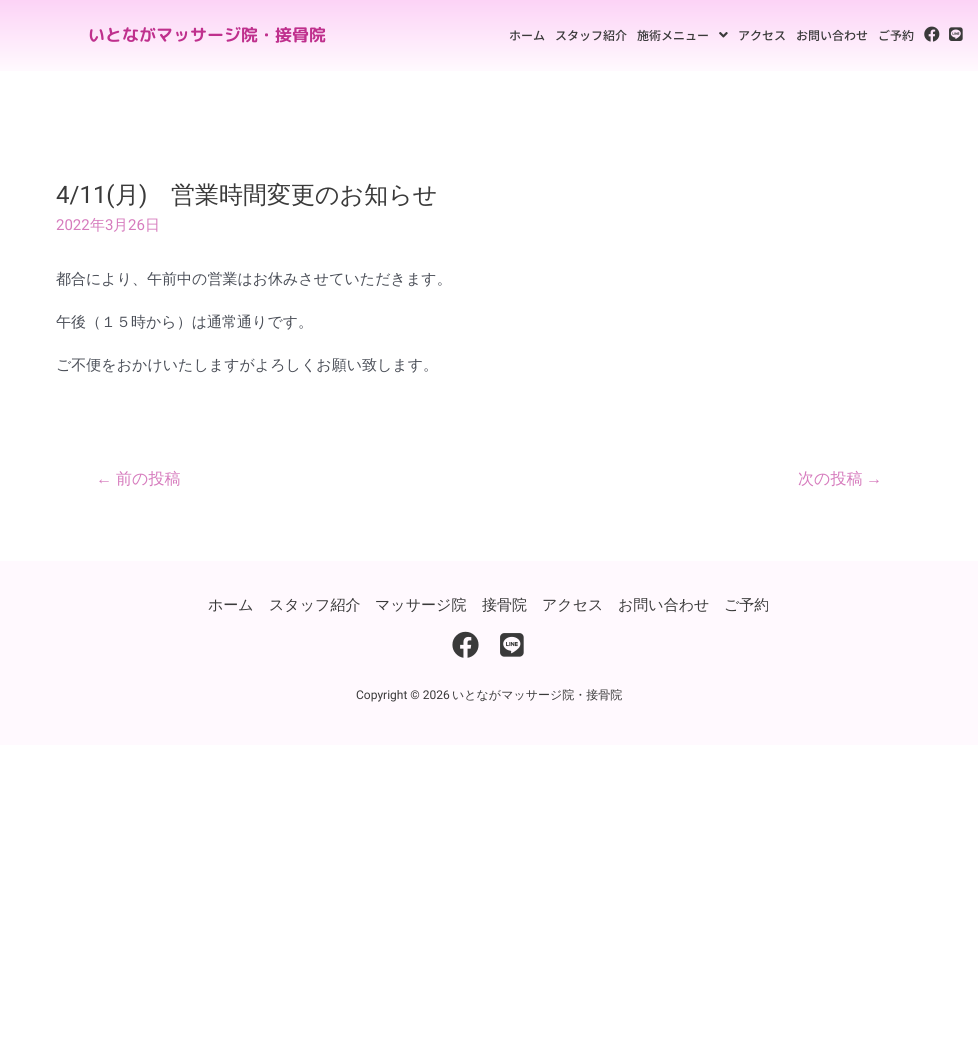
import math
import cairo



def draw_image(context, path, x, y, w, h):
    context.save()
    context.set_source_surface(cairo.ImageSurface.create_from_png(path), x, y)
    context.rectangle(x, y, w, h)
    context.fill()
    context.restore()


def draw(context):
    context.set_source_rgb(1, 1, 1)
    context.paint()
    gradient = cairo.LinearGradient(489, 0, 489, 70)
    gradient.add_color_stop_rgba(0, 252 / 255, 211 / 255, 246 / 255, 1)
    gradient.add_color_stop_rgba(1, 1, 249 / 255, 254 / 255, 1)
    context.set_source(gradient)
    context.rectangle(0, 0, 978, 70)
    context.fill()
    draw_image(context, "images/1.png", 719, 32, 9, 6)
    draw_image(context, "images/2.png", 924, 26, 16, 16)
    draw_image(context, "images/3.png", 949, 27, 14, 14)
    context.set_source_rgb(1, 249 / 255, 254 / 255)
    context.rectangle(0, 70, 978, 1)
    context.fill()
    context.rectangle(0, 561, 978, 184)
    context.fill()
    draw_image(context, "images/4.png", 452, 631, 27, 27)
    draw_image(context, "images/5.png", 500, 633, 24, 24)
    context.select_font_face("Rounded Mplus 1c Bold", cairo.FontSlant.NORMAL, cairo.FontWeight.BOLD)
    context.set_font_size(17)
    context.set_source_rgb(191 / 255, 48 / 255, 141 / 255)
    context.move_to(88, 41)
    context.show_text("いとながマッサージ院・接骨院")
    context.select_font_face("Noto Sans JP Medium")
    context.set_font_size(12)
    context.set_source_rgb(58 / 255, 58 / 255, 58 / 255)
    context.move_to(509, 40)
    context.show_text("ホーム")
    context.move_to(555, 40)
    context.show_text("スタッフ紹介")
    context.move_to(637, 40)
    context.show_text("施術メニュー")
    context.move_to(738, 40)
    context.show_text("アクセス")
    context.move_to(796, 40)
    context.show_text("お問い合わせ")
    context.move_to(878, 40)
    context.show_text("ご予約")
    context.select_font_face("Roboto")
    context.set_font_size(24)
    context.move_to(56, 203)
    context.show_text("4/11(")
    context.select_font_face("WenQuanYi Zen Hei Medium")
    context.move_to(115, 203)
    context.show_text("月")
    context.select_font_face("Roboto")
    context.move_to(139, 203)
    context.show_text(")")
    context.select_font_face("WenQuanYi Zen Hei Medium")
    context.move_to(171, 203)
    context.show_text("営業時間変更のお知らせ")
    context.select_font_face("Roboto")
    context.set_font_size(15)
    context.set_source_rgb(214 / 255, 123 / 255, 189 / 255)
    context.move_to(56, 230)
    context.show_text("2022")
    context.select_font_face("WenQuanYi Zen Hei Medium")
    context.move_to(90, 230)
    context.show_text("年")
    context.select_font_face("Roboto")
    context.move_to(105, 230)
    context.show_text("3")
    context.select_font_face("WenQuanYi Zen Hei Medium")
    context.move_to(113, 230)
    context.show_text("月")
    context.select_font_face("Roboto")
    context.move_to(128, 230)
    context.show_text("26")
    context.select_font_face("WenQuanYi Zen Hei Medium")
    context.move_to(145, 230)
    context.show_text("日")
    context.set_source_rgb(75 / 255, 79 / 255, 88 / 255)
    context.move_to(56, 284)
    context.show_text("都合により、午前中の営業はお休みさせていただきます。")
    context.move_to(56, 327)
    context.show_text("午後（１５時から）は通常通りです。")
    context.move_to(56, 370)
    context.show_text("ご不便をおかけいたしますがよろしくお願い致します。")
    context.select_font_face("Liberation Sans")
    context.set_font_size(16)
    context.set_source_rgb(214 / 255, 123 / 255, 189 / 255)
    context.move_to(96, 484)
    context.show_text("←")
    context.select_font_face("WenQuanYi Zen Hei Medium")
    context.move_to(116, 484)
    context.show_text("前の投稿")
    context.move_to(798, 484)
    context.show_text("次の投稿")
    context.select_font_face("Liberation Sans")
    context.move_to(866, 484)
    context.show_text("→")
    context.select_font_face("WenQuanYi Zen Hei Medium")
    context.set_font_size(15)
    context.set_source_rgb(58 / 255, 58 / 255, 58 / 255)
    context.move_to(208, 610)
    context.show_text("ホーム")
    context.move_to(269, 610)
    context.show_text("スタッフ紹介")
    context.move_to(375, 610)
    context.show_text("マッサージ院")
    context.move_to(482, 610)
    context.show_text("接骨院")
    context.move_to(542, 610)
    context.show_text("アクセス")
    context.move_to(618, 610)
    context.show_text("お問い合わせ")
    context.move_to(724, 610)
    context.show_text("ご予約")
    context.select_font_face("Roboto")
    context.set_font_size(12)
    context.move_to(356, 699)
    context.show_text("Copyright © 2026")
    context.select_font_face("WenQuanYi Zen Hei Medium")
    context.move_to(452, 699)
    context.show_text("いとながマッサージ院・接骨院")


surface = cairo.ImageSurface(cairo.Format.RGB24, 978, 1064)
context = cairo.Context(surface)
options = cairo.FontOptions()
options.set_hint_metrics(cairo.HintMetrics.OFF)
options.set_hint_style(cairo.HintStyle.NONE)
context.set_font_options(options)
context.set_miter_limit(4)
draw(context)
surface.write_to_png("out.png")
